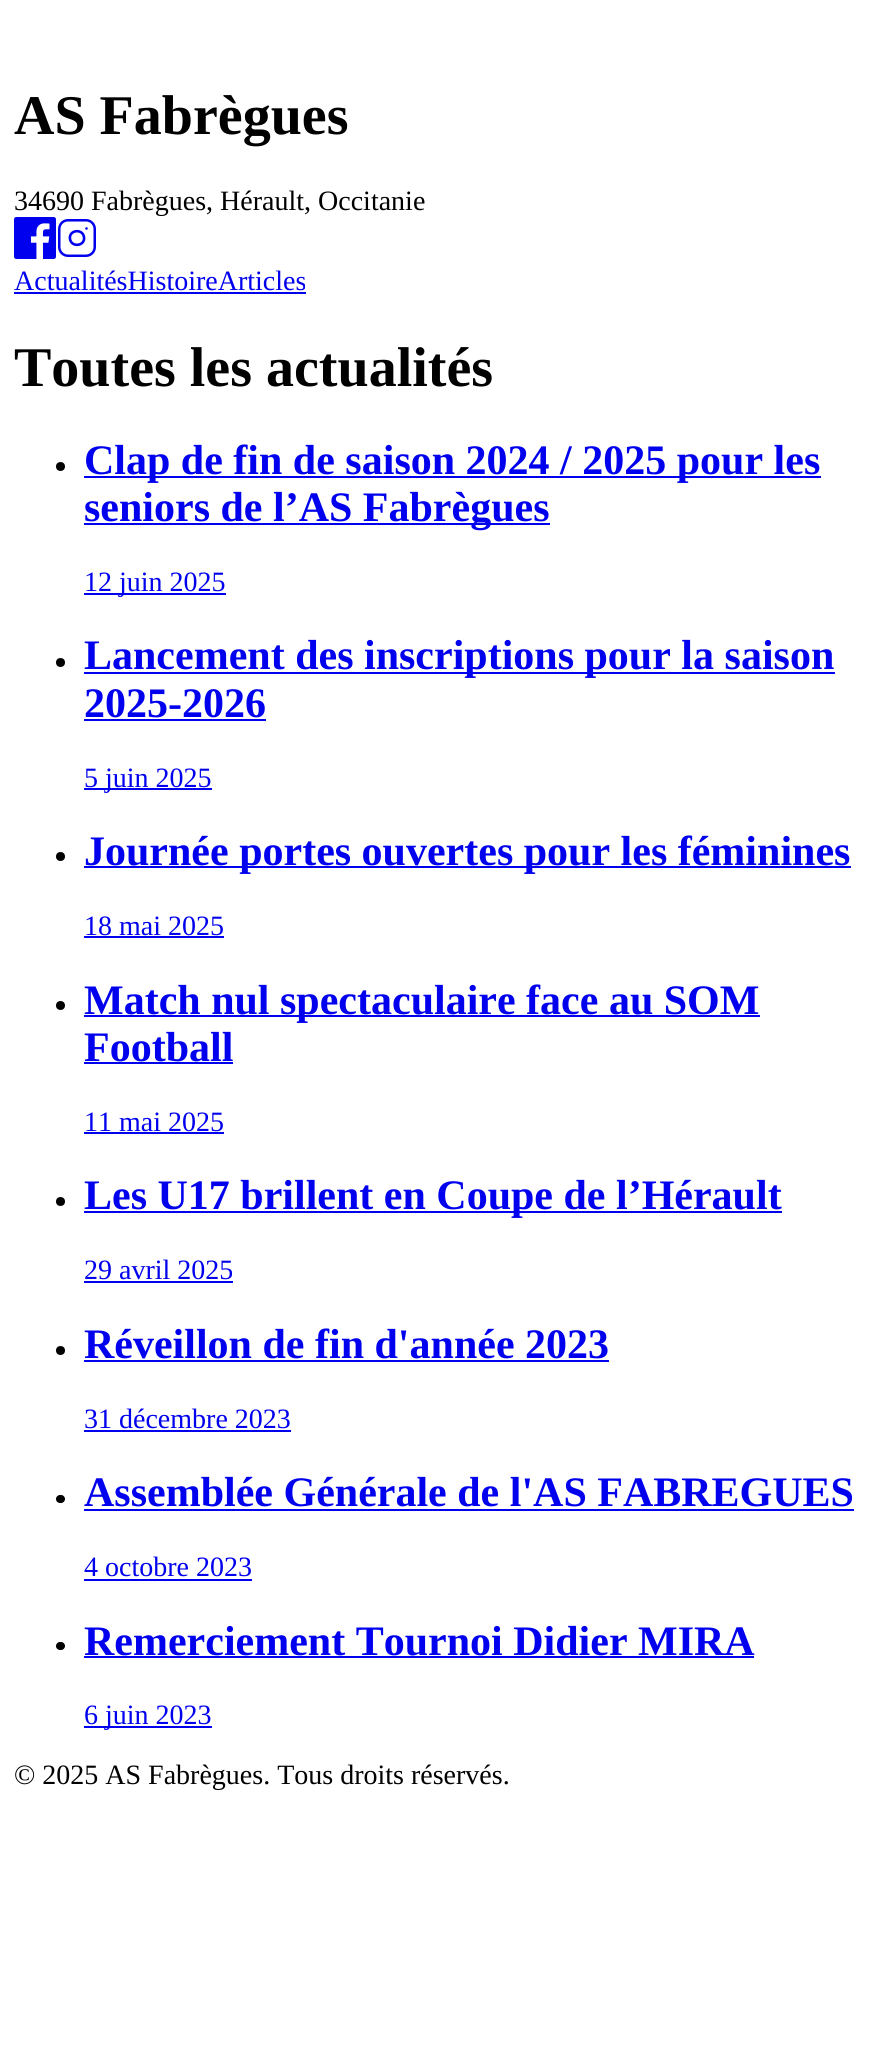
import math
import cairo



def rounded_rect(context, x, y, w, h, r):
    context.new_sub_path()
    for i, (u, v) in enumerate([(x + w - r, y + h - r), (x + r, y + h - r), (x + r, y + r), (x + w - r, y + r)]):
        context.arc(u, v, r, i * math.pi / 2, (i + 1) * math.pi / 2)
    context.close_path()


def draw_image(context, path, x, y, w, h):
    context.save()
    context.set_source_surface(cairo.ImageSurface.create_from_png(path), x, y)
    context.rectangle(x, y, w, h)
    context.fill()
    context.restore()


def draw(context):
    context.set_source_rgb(1, 1, 1)
    context.paint()
    draw_image(context, "images/1.png", 14, 217, 42, 42)
    rounded_rect(context, 59.25, 220.25, 35.5, 35.5, 8.75)
    context.set_source_rgb(0, 0, 238 / 255)
    context.set_line_width(2.5)
    context.stroke()
    context.new_path()
    context.move_to(84, 237)
    context.curve_to(85.5, 246, 71.5, 248, 70, 239)
    context.curve_to(68.5, 230, 82.5, 228, 84, 237)
    context.close_path()
    context.move_to(86.5, 228.5)
    context.line_to(86.5, 228.5)
    context.set_line_width(2.6)
    context.set_line_cap(cairo.LineCap.ROUND)
    context.set_line_join(cairo.LineJoin.ROUND)
    context.stroke()
    context.rectangle(14, 292, 292, 2)
    context.fill()
    context.set_source_rgb(0, 0, 0)
    context.arc(60.5, 466.5, 4.5, 0, 2 * math.pi)
    context.fill()
    context.set_source_rgb(0, 0, 238 / 255)
    context.rectangle(84, 476, 737, 2)
    context.fill()
    context.rectangle(84, 523, 466, 2)
    context.fill()
    context.rectangle(84, 593, 142, 2)
    context.fill()
    context.set_source_rgb(0, 0, 0)
    context.arc(60.5, 662.5, 4.5, 0, 2 * math.pi)
    context.fill()
    context.set_source_rgb(0, 0, 238 / 255)
    context.rectangle(84, 672, 751, 2)
    context.fill()
    context.rectangle(84, 719, 182, 2)
    context.fill()
    context.rectangle(84, 788, 128, 2)
    context.fill()
    context.set_source_rgb(0, 0, 0)
    context.arc(60.5, 856.5, 4.5, 0, 2 * math.pi)
    context.fill()
    context.set_source_rgb(0, 0, 238 / 255)
    context.rectangle(84, 866, 767, 2)
    context.fill()
    context.rectangle(84, 936, 140, 2)
    context.fill()
    context.set_source_rgb(0, 0, 0)
    context.arc(60.5, 1005.5, 4.5, 0, 2 * math.pi)
    context.fill()
    context.set_source_rgb(0, 0, 238 / 255)
    context.rectangle(84, 1015, 676, 2)
    context.fill()
    context.rectangle(84, 1062, 149, 2)
    context.fill()
    context.rectangle(84, 1132, 140, 2)
    context.fill()
    context.set_source_rgb(0, 0, 0)
    context.arc(60.5, 1201.5, 4.5, 0, 2 * math.pi)
    context.fill()
    context.set_source_rgb(0, 0, 238 / 255)
    context.rectangle(84, 1211, 698, 2)
    context.fill()
    context.rectangle(84, 1281, 149, 2)
    context.fill()
    context.set_source_rgb(0, 0, 0)
    context.arc(60.5, 1350.5, 4.5, 0, 2 * math.pi)
    context.fill()
    context.set_source_rgb(0, 0, 238 / 255)
    context.rectangle(84, 1360, 525, 2)
    context.fill()
    context.rectangle(84, 1430, 207, 2)
    context.fill()
    context.set_source_rgb(0, 0, 0)
    rounded_rect(context, 56, 1495, 9, 8, 4)
    context.fill()
    context.set_source_rgb(0, 0, 238 / 255)
    context.rectangle(84, 1509, 770, 2)
    context.fill()
    context.rectangle(84, 1579, 168, 2)
    context.fill()
    context.set_source_rgb(0, 0, 0)
    rounded_rect(context, 56, 1642, 9, 8, 4)
    context.fill()
    context.set_source_rgb(0, 0, 238 / 255)
    context.rectangle(84, 1656, 670, 2)
    context.fill()
    context.rectangle(84, 1726, 128, 2)
    context.fill()
    context.select_font_face("Liberation Serif", cairo.FontSlant.NORMAL, cairo.FontWeight.BOLD)
    context.set_font_size(56)
    context.set_source_rgb(0, 0, 0)
    context.move_to(14, 134)
    context.show_text("AS Fabrègues")
    context.select_font_face("Liberation Serif")
    context.set_font_size(28)
    context.move_to(14, 210)
    context.show_text("34690 Fabrègues, Hérault, Occitanie")
    context.set_source_rgb(0, 0, 238 / 255)
    context.move_to(14, 290)
    context.show_text("ActualitésHistoireArticles")
    context.select_font_face("Liberation Serif", cairo.FontSlant.NORMAL, cairo.FontWeight.BOLD)
    context.set_font_size(56)
    context.set_source_rgb(0, 0, 0)
    context.move_to(14, 386)
    context.show_text("Toutes les actualités")
    context.set_font_size(42)
    context.set_source_rgb(0, 0, 238 / 255)
    context.move_to(84, 474)
    context.show_text("Clap de fin de saison 2024 / 2025 pour les")
    context.move_to(84, 521)
    context.show_text("seniors de l’AS Fabrègues")
    context.select_font_face("Liberation Serif")
    context.set_font_size(28)
    context.move_to(84, 591)
    context.show_text("12 juin 2025")
    context.select_font_face("Liberation Serif", cairo.FontSlant.NORMAL, cairo.FontWeight.BOLD)
    context.set_font_size(42)
    context.move_to(84, 669)
    context.show_text("Lancement des inscriptions pour la saison")
    context.move_to(84, 717)
    context.show_text("2025-2026")
    context.select_font_face("Liberation Serif")
    context.set_font_size(28)
    context.move_to(84, 787)
    context.show_text("5 juin 2025")
    context.select_font_face("Liberation Serif", cairo.FontSlant.NORMAL, cairo.FontWeight.BOLD)
    context.set_font_size(42)
    context.move_to(84, 865)
    context.show_text("Journée portes ouvertes pour les féminines")
    context.select_font_face("Liberation Serif")
    context.set_font_size(28)
    context.move_to(84, 935)
    context.show_text("18 mai 2025")
    context.select_font_face("Liberation Serif", cairo.FontSlant.NORMAL, cairo.FontWeight.BOLD)
    context.set_font_size(42)
    context.move_to(84, 1014)
    context.show_text("Match nul spectaculaire face au SOM")
    context.move_to(84, 1061)
    context.show_text("Football")
    context.select_font_face("Liberation Serif")
    context.set_font_size(28)
    context.move_to(84, 1131)
    context.show_text("11 mai 2025")
    context.select_font_face("Liberation Serif", cairo.FontSlant.NORMAL, cairo.FontWeight.BOLD)
    context.set_font_size(42)
    context.move_to(84, 1209)
    context.show_text("Les U17 brillent en Coupe de l’Hérault")
    context.select_font_face("Liberation Serif")
    context.set_font_size(28)
    context.move_to(84, 1279)
    context.show_text("29 avril 2025")
    context.select_font_face("Liberation Serif", cairo.FontSlant.NORMAL, cairo.FontWeight.BOLD)
    context.set_font_size(42)
    context.move_to(84, 1358)
    context.show_text("Réveillon de fin d'année 2023")
    context.select_font_face("Liberation Serif")
    context.set_font_size(28)
    context.move_to(84, 1428)
    context.show_text("31 décembre 2023")
    context.select_font_face("Liberation Serif", cairo.FontSlant.NORMAL, cairo.FontWeight.BOLD)
    context.set_font_size(42)
    context.move_to(84, 1506)
    context.show_text("Assemblée Générale de l'AS FABREGUES")
    context.select_font_face("Liberation Serif")
    context.set_font_size(28)
    context.move_to(84, 1576)
    context.show_text("4 octobre 2023")
    context.select_font_face("Liberation Serif", cairo.FontSlant.NORMAL, cairo.FontWeight.BOLD)
    context.set_font_size(42)
    context.move_to(84, 1655)
    context.show_text("Remerciement Tournoi Didier MIRA")
    context.select_font_face("Liberation Serif")
    context.set_font_size(28)
    context.move_to(84, 1724)
    context.show_text("6 juin 2023")
    context.set_source_rgb(0, 0, 0)
    context.move_to(14, 1784)
    context.show_text("© 2025 AS Fabrègues. Tous droits réservés.")


surface = cairo.ImageSurface(cairo.Format.RGB24, 892, 2046)
context = cairo.Context(surface)
options = cairo.FontOptions()
options.set_hint_metrics(cairo.HintMetrics.OFF)
options.set_hint_style(cairo.HintStyle.NONE)
context.set_font_options(options)
context.set_miter_limit(4)
draw(context)
surface.write_to_png("out.png")
